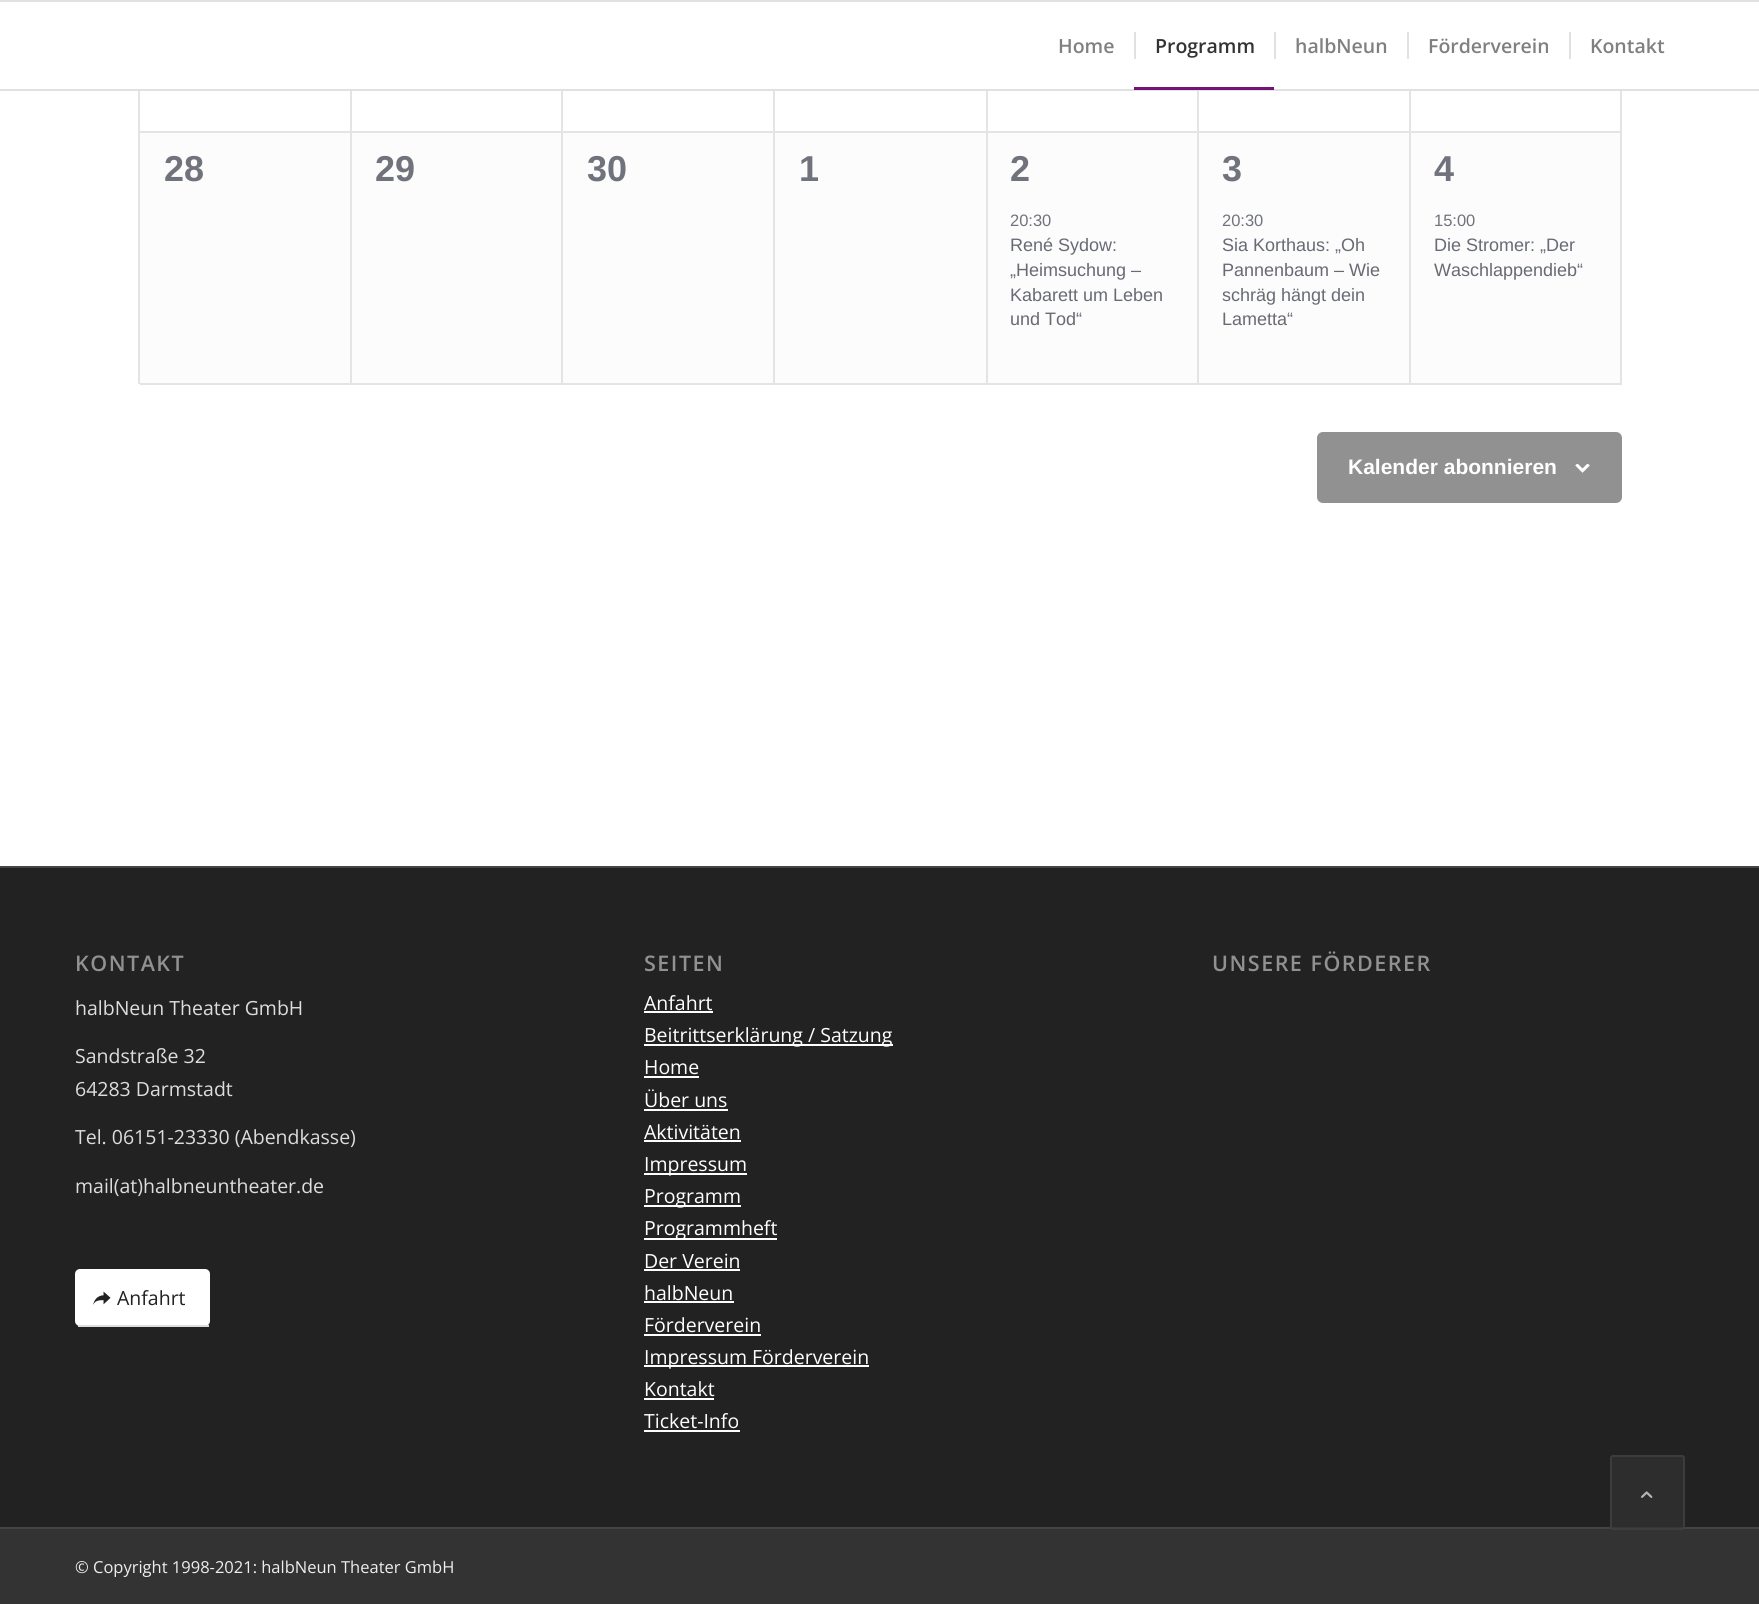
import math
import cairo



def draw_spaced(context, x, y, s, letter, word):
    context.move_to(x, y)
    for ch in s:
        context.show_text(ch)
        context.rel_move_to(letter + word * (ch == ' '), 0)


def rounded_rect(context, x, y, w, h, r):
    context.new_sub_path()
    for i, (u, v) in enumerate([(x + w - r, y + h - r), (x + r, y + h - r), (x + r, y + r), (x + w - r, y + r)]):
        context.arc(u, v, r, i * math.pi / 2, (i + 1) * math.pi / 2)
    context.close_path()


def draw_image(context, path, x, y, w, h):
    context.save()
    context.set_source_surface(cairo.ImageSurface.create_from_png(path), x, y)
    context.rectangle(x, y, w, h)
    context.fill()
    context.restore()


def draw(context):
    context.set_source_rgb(1, 1, 1)
    context.paint()
    context.set_source_rgb(225 / 255, 225 / 255, 225 / 255)
    context.rectangle(0, 0, 1759, 2)
    context.fill()
    context.rectangle(0, 89, 1759, 2)
    context.fill()
    context.rectangle(1134, 32, 2, 27)
    context.fill()
    context.set_source_rgb(116 / 255, 19 / 255, 118 / 255)
    context.rectangle(1134, 87, 140, 3)
    context.fill()
    context.set_source_rgb(225 / 255, 225 / 255, 225 / 255)
    context.rectangle(1274, 32, 2, 27)
    context.fill()
    context.rectangle(1407, 32, 2, 27)
    context.fill()
    context.rectangle(1569, 32, 2, 27)
    context.fill()
    context.set_source_rgb(252 / 255, 252 / 255, 252 / 255)
    context.rectangle(140, 133, 1480, 250)
    context.fill()
    context.set_source_rgb(228 / 255, 228 / 255, 228 / 255)
    context.rectangle(138, 91, 2, 293)
    context.fill()
    context.rectangle(350, 91, 2, 41)
    context.fill()
    context.rectangle(140, 131, 211, 2)
    context.fill()
    context.rectangle(561, 91, 2, 41)
    context.fill()
    context.rectangle(351, 131, 212, 2)
    context.fill()
    context.rectangle(773, 91, 2, 41)
    context.fill()
    context.rectangle(563, 131, 211, 2)
    context.fill()
    context.rectangle(986, 91, 2, 41)
    context.fill()
    context.rectangle(774, 131, 213, 2)
    context.fill()
    context.rectangle(1197, 91, 2, 41)
    context.fill()
    context.rectangle(987, 131, 212, 2)
    context.fill()
    context.rectangle(1409, 91, 2, 41)
    context.fill()
    context.rectangle(1199, 131, 211, 2)
    context.fill()
    context.rectangle(1620, 91, 2, 41)
    context.fill()
    context.rectangle(1410, 131, 212, 2)
    context.fill()
    context.rectangle(350, 132, 2, 252)
    context.fill()
    context.rectangle(140, 383, 211, 2)
    context.fill()
    context.rectangle(561, 132, 2, 252)
    context.fill()
    context.rectangle(351, 383, 212, 2)
    context.fill()
    context.rectangle(773, 132, 2, 252)
    context.fill()
    context.rectangle(563, 383, 211, 2)
    context.fill()
    context.rectangle(986, 132, 2, 252)
    context.fill()
    context.rectangle(774, 383, 213, 2)
    context.fill()
    context.rectangle(1197, 132, 2, 252)
    context.fill()
    context.rectangle(987, 383, 212, 2)
    context.fill()
    context.rectangle(1409, 132, 2, 252)
    context.fill()
    context.rectangle(1199, 383, 211, 2)
    context.fill()
    context.rectangle(1620, 132, 2, 252)
    context.fill()
    context.rectangle(1410, 383, 212, 2)
    context.fill()
    context.set_source_rgb(145 / 255, 145 / 255, 145 / 255)
    rounded_rect(context, 1318, 433, 303, 69, 5)
    context.fill_preserve()
    context.stroke()
    draw_image(context, "images/1.png", 1575, 464, 15, 9)
    context.set_source_rgb(34 / 255, 34 / 255, 34 / 255)
    context.rectangle(0, 868, 1759, 659)
    context.fill()
    context.set_source_rgb(68 / 255, 68 / 255, 68 / 255)
    context.rectangle(0, 866, 1759, 2)
    context.fill()
    context.set_source_rgb(1, 1, 1)
    rounded_rect(context, 75, 1269, 135, 57, 5)
    context.fill()
    context.set_source_rgb(221 / 255, 221 / 255, 221 / 255)
    context.rectangle(78, 1325, 131, 2)
    context.fill()
    draw_image(context, "images/2.png", 93, 1291, 18, 14)
    context.set_source_rgb(1, 1, 1)
    context.rectangle(644, 1011, 69, 2)
    context.fill()
    context.rectangle(644, 1044, 249, 2)
    context.fill()
    context.rectangle(644, 1076, 55, 2)
    context.fill()
    context.rectangle(644, 1109, 84, 2)
    context.fill()
    context.rectangle(644, 1140, 97, 2)
    context.fill()
    context.rectangle(644, 1173, 103, 2)
    context.fill()
    context.rectangle(644, 1205, 97, 2)
    context.fill()
    context.rectangle(644, 1238, 133, 2)
    context.fill()
    context.rectangle(644, 1269, 96, 2)
    context.fill()
    context.rectangle(644, 1301, 90, 2)
    context.fill()
    context.rectangle(644, 1334, 117, 2)
    context.fill()
    context.rectangle(644, 1365, 225, 2)
    context.fill()
    context.rectangle(644, 1398, 70, 2)
    context.fill()
    context.rectangle(644, 1430, 96, 2)
    context.fill()
    context.set_source_rgb(51 / 255, 51 / 255, 51 / 255)
    context.rectangle(0, 1529, 1759, 75)
    context.fill()
    context.set_source_rgb(68 / 255, 68 / 255, 68 / 255)
    context.rectangle(0, 1527, 1759, 2)
    context.fill()
    context.set_source_rgba(51 / 255, 51 / 255, 51 / 255, 0.7)
    rounded_rect(context, 1610, 1455, 75, 75, 3)
    context.fill()
    rounded_rect(context, 1611, 1456, 73, 73, 2)
    context.set_source_rgba(68 / 255, 68 / 255, 68 / 255, 0.7)
    context.stroke()
    draw_image(context, "images/3.png", 1641, 1491, 12, 7)
    context.select_font_face("Open Sans SemiBold")
    context.set_font_size(19.5)
    context.set_source_rgb(128 / 255, 128 / 255, 128 / 255)
    context.move_to(1058, 53)
    context.show_text("Home")
    context.set_source_rgb(51 / 255, 51 / 255, 51 / 255)
    context.move_to(1155, 53)
    context.show_text("Programm")
    context.set_source_rgb(128 / 255, 128 / 255, 128 / 255)
    context.move_to(1295, 53)
    context.show_text("halbNeun")
    context.move_to(1428, 53)
    context.show_text("Förderverein")
    context.move_to(1590, 53)
    context.show_text("Kontakt")
    context.select_font_face("Liberation Sans", cairo.FontSlant.NORMAL, cairo.FontWeight.BOLD)
    context.set_font_size(36)
    context.set_source_rgb(113 / 255, 115 / 255, 124 / 255)
    context.move_to(164, 181)
    context.show_text("28")
    context.move_to(375, 181)
    context.show_text("29")
    context.move_to(587, 181)
    context.show_text("30")
    context.move_to(799, 181)
    context.show_text("1")
    context.move_to(1010, 181)
    context.show_text("2")
    context.select_font_face("Liberation Sans")
    context.set_font_size(16.5)
    context.move_to(1010, 226)
    context.show_text("20:30")
    context.set_font_size(18)
    context.set_source_rgb(104 / 255, 106 / 255, 116 / 255)
    context.move_to(1010, 251)
    context.show_text("René Sydow:")
    context.move_to(1010, 276)
    context.show_text("„Heimsuchung –")
    context.move_to(1010, 301)
    context.show_text("Kabarett um Leben")
    context.move_to(1010, 325)
    context.show_text("und Tod“")
    context.select_font_face("Liberation Sans", cairo.FontSlant.NORMAL, cairo.FontWeight.BOLD)
    context.set_font_size(36)
    context.set_source_rgb(113 / 255, 115 / 255, 124 / 255)
    context.move_to(1222, 181)
    context.show_text("3")
    context.select_font_face("Liberation Sans")
    context.set_font_size(16.5)
    context.move_to(1222, 226)
    context.show_text("20:30")
    context.set_font_size(18)
    context.set_source_rgb(104 / 255, 106 / 255, 116 / 255)
    context.move_to(1222, 251)
    context.show_text("Sia Korthaus: „Oh")
    context.move_to(1222, 276)
    context.show_text("Pannenbaum – Wie")
    context.move_to(1222, 301)
    context.show_text("schräg hängt dein")
    context.move_to(1222, 325)
    context.show_text("Lametta“")
    context.select_font_face("Liberation Sans", cairo.FontSlant.NORMAL, cairo.FontWeight.BOLD)
    context.set_font_size(36)
    context.set_source_rgb(113 / 255, 115 / 255, 124 / 255)
    context.move_to(1434, 181)
    context.show_text("4")
    context.select_font_face("Liberation Sans")
    context.set_font_size(16.5)
    context.move_to(1434, 226)
    context.show_text("15:00")
    context.set_font_size(18)
    context.set_source_rgb(104 / 255, 106 / 255, 116 / 255)
    context.move_to(1434, 251)
    context.show_text("Die Stromer: „Der")
    context.move_to(1434, 276)
    context.show_text("Waschlappendieb“")
    context.select_font_face("Liberation Sans", cairo.FontSlant.NORMAL, cairo.FontWeight.BOLD)
    context.set_font_size(21)
    context.set_source_rgb(1, 1, 1)
    context.move_to(1348, 474)
    context.show_text("Kalender abonnieren")
    context.select_font_face("Open Sans SemiBold")
    context.set_font_size(21.5)
    context.set_source_rgb(145 / 255, 145 / 255, 145 / 255)
    draw_spaced(context, 75, 971, "KONTAKT", 1.5, 0)
    context.select_font_face("Open Sans")
    context.set_font_size(19.5)
    context.set_source_rgb(221 / 255, 221 / 255, 221 / 255)
    context.move_to(75, 1015)
    context.show_text("halbNeun Theater GmbH")
    context.move_to(75, 1063)
    context.show_text("Sandstraße 32")
    context.move_to(75, 1096)
    context.show_text("64283 Darmstadt")
    context.move_to(75, 1144)
    context.show_text("Tel. 06151-23330 (Abendkasse)")
    context.move_to(75, 1193)
    context.show_text("mail(at)halbneuntheater.de")
    context.set_source_rgb(34 / 255, 34 / 255, 34 / 255)
    context.move_to(117, 1305)
    context.show_text("Anfahrt")
    context.select_font_face("Open Sans SemiBold")
    context.set_font_size(21.5)
    context.set_source_rgb(145 / 255, 145 / 255, 145 / 255)
    draw_spaced(context, 644, 971, "SEITEN", 1.5, 0)
    context.select_font_face("Open Sans")
    context.set_font_size(19.5)
    context.set_source_rgb(1, 1, 1)
    context.move_to(644, 1010)
    context.show_text("Anfahrt")
    context.move_to(644, 1042)
    context.show_text("Beitrittserklärung / Satzung")
    context.move_to(644, 1074)
    context.show_text("Home")
    context.move_to(644, 1107)
    context.show_text("Über uns")
    context.move_to(644, 1139)
    context.show_text("Aktivitäten")
    context.move_to(644, 1171)
    context.show_text("Impressum")
    context.move_to(644, 1203)
    context.show_text("Programm")
    context.move_to(644, 1235)
    context.show_text("Programmheft")
    context.move_to(644, 1268)
    context.show_text("Der Verein")
    context.move_to(644, 1300)
    context.show_text("halbNeun")
    context.move_to(644, 1332)
    context.show_text("Förderverein")
    context.move_to(644, 1364)
    context.show_text("Impressum Förderverein")
    context.move_to(644, 1396)
    context.show_text("Kontakt")
    context.move_to(644, 1428)
    context.show_text("Ticket-Info")
    context.select_font_face("Open Sans SemiBold")
    context.set_font_size(21.5)
    context.set_source_rgb(145 / 255, 145 / 255, 145 / 255)
    draw_spaced(context, 1212, 971, "UNSERE FÖRDERER", 1.5, 0)
    context.select_font_face("Open Sans")
    context.set_font_size(16.5)
    context.set_source_rgb(238 / 255, 238 / 255, 238 / 255)
    context.move_to(75, 1573)
    context.show_text("© Copyright 1998-2021: halbNeun Theater GmbH")


surface = cairo.ImageSurface(cairo.Format.RGB24, 1759, 1604)
context = cairo.Context(surface)
options = cairo.FontOptions()
options.set_hint_metrics(cairo.HintMetrics.OFF)
options.set_hint_style(cairo.HintStyle.NONE)
context.set_font_options(options)
context.set_miter_limit(4)
draw(context)
surface.write_to_png("out.png")
